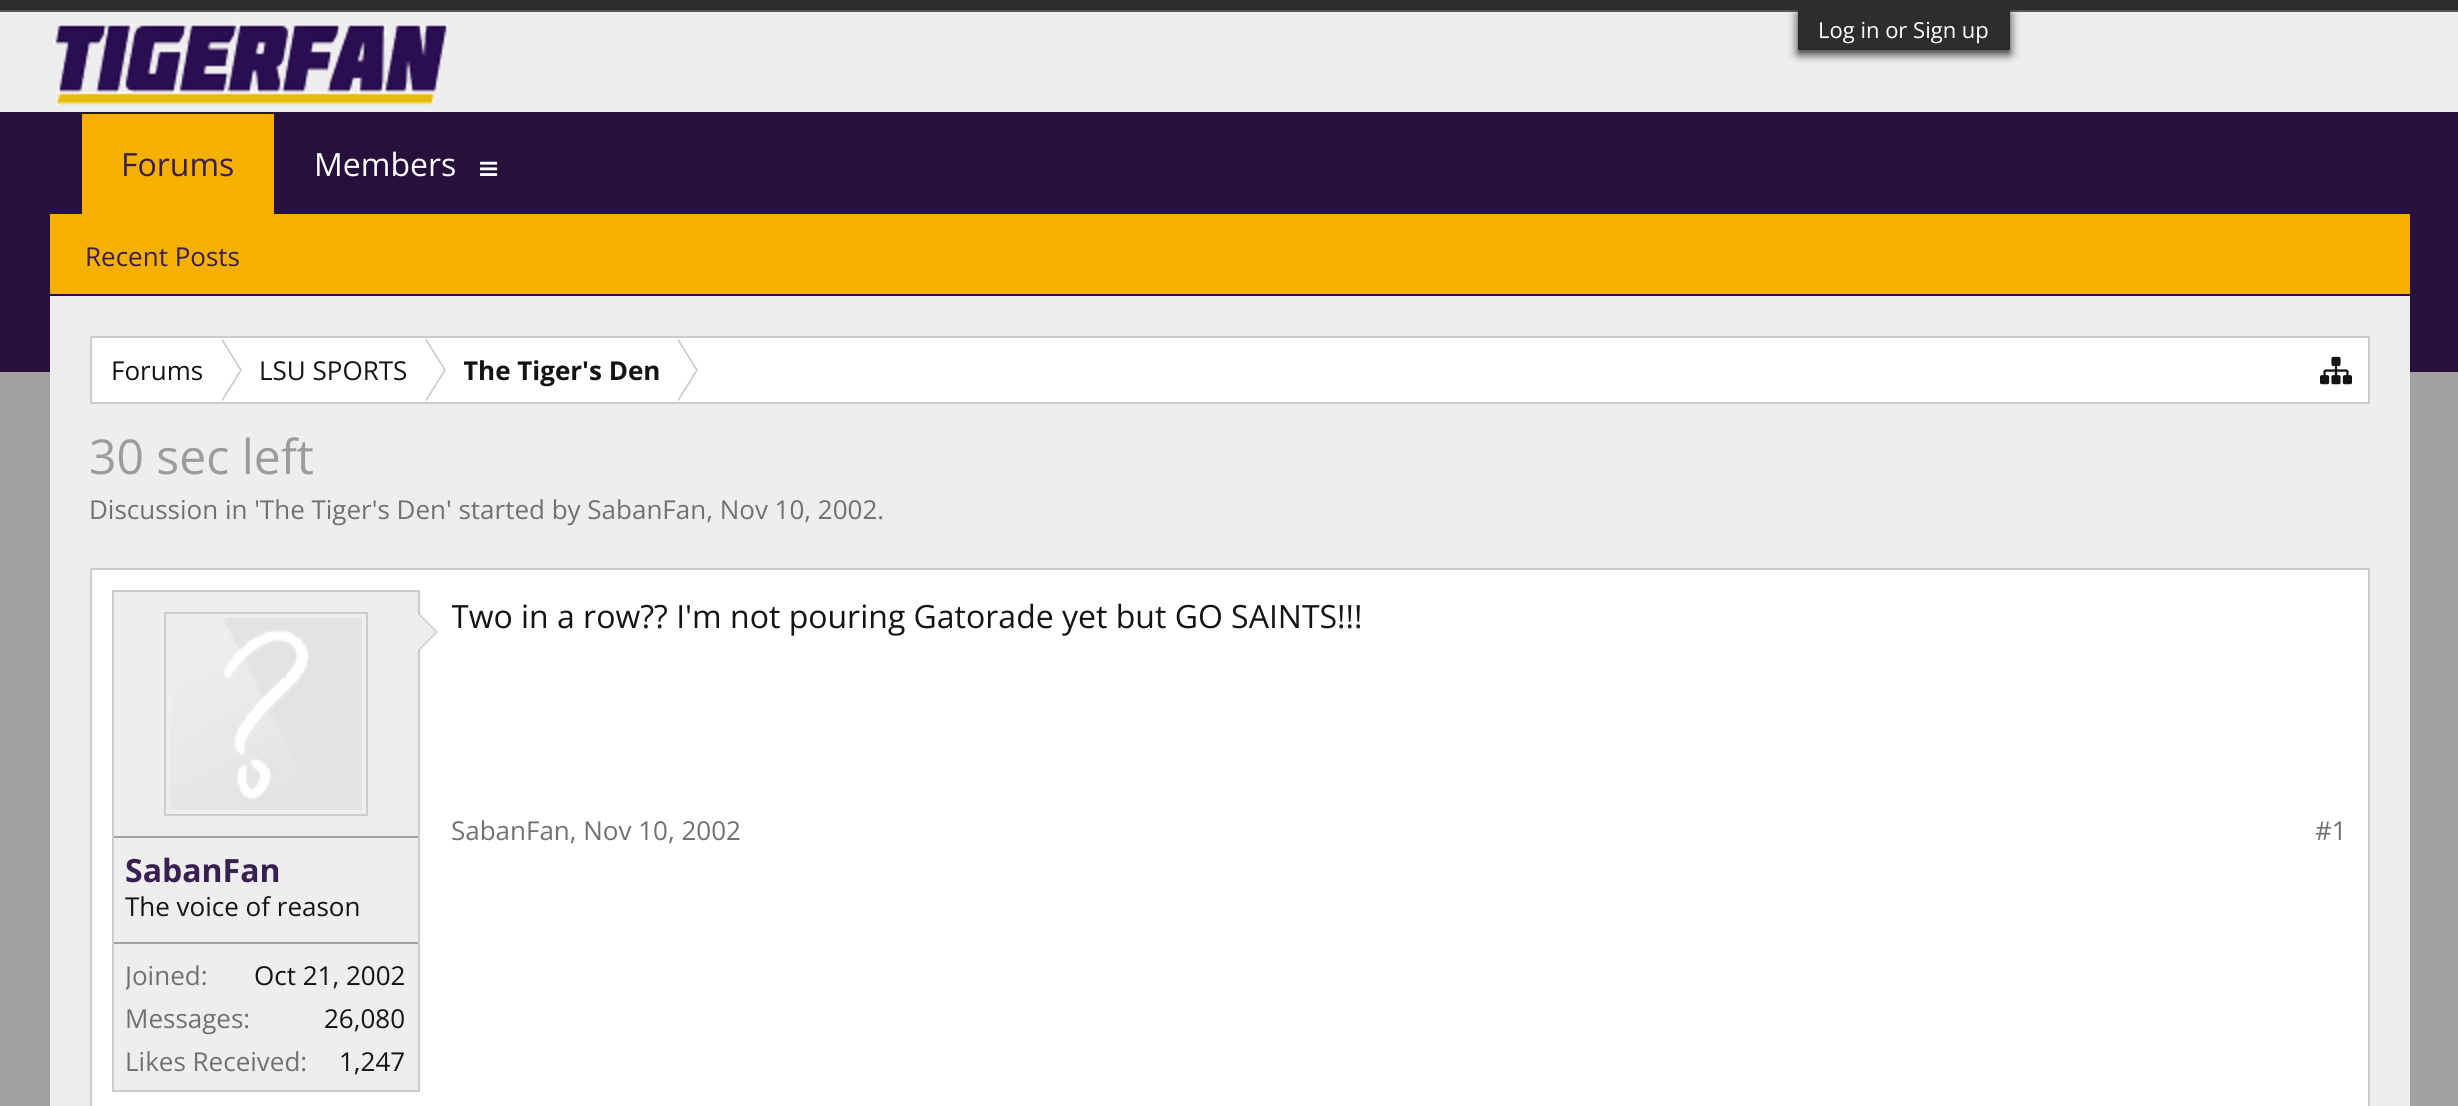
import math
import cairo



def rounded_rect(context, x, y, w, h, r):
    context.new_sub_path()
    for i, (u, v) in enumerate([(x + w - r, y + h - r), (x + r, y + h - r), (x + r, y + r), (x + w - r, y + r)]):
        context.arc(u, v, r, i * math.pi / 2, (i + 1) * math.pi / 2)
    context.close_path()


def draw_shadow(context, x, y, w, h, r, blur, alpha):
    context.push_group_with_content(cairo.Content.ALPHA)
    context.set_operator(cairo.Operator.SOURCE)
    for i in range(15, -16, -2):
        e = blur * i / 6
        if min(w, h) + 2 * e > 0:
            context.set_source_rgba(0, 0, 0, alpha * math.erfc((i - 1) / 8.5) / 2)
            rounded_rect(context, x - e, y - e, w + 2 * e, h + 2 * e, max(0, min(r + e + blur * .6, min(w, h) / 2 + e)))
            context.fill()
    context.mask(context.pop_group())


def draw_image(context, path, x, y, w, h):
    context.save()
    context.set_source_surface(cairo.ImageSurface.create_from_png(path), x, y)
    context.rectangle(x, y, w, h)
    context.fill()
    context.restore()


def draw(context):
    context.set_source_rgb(161 / 255, 161 / 255, 161 / 255)
    context.paint()
    context.set_source_rgb(45 / 255, 45 / 255, 45 / 255)
    context.rectangle(0, 0, 2458, 10)
    context.fill()
    context.set_source_rgb(88 / 255, 88 / 255, 88 / 255)
    context.rectangle(0, 10, 2458, 2)
    context.fill()
    context.set_source_rgb(238 / 255, 238 / 255, 238 / 255)
    context.rectangle(0, 12, 2458, 100)
    context.fill()
    context.set_source_rgb(45 / 255, 45 / 255, 45 / 255)
    draw_shadow(context, 1798, 14, 212, 40, 0, 5, 1)
    context.set_source_rgb(45 / 255, 45 / 255, 45 / 255)
    context.rectangle(1798, 10, 212, 40)
    context.fill()
    context.set_source_rgb(40 / 255, 16 / 255, 60 / 255)
    context.rectangle(0, 112, 2458, 260)
    context.fill()
    draw_image(context, "images/1.png", 53, 23, 395, 83)
    context.set_source_rgb(246 / 255, 176 / 255, 0)
    context.rectangle(82, 114, 192, 100)
    context.fill()
    context.rectangle(50, 214, 2360, 80)
    context.fill()
    draw_image(context, "images/2.png", 480, 161, 18, 15)
    context.set_source_rgb(238 / 255, 238 / 255, 238 / 255)
    context.rectangle(50, 296, 2360, 810)
    context.fill()
    context.set_source_rgb(1, 1, 1)
    context.rectangle(91, 337, 2278, 66)
    context.fill_preserve()
    context.set_source_rgb(205 / 255, 203 / 255, 207 / 255)
    context.stroke()
    context.new_path()
    context.move_to(222, 402)
    context.line_to(222, 338)
    context.line_to(242, 370)
    context.close_path()
    context.fill()
    context.set_source_rgb(1, 1, 1)
    context.new_path()
    context.move_to(220, 402)
    context.line_to(220, 338)
    context.line_to(240, 370)
    context.close_path()
    context.fill()
    context.set_source_rgb(205 / 255, 203 / 255, 207 / 255)
    context.new_path()
    context.move_to(426, 402)
    context.line_to(426, 338)
    context.line_to(446, 370)
    context.close_path()
    context.fill()
    context.set_source_rgb(1, 1, 1)
    context.new_path()
    context.move_to(424, 402)
    context.line_to(424, 338)
    context.line_to(444, 370)
    context.close_path()
    context.fill()
    context.set_source_rgb(205 / 255, 203 / 255, 207 / 255)
    context.new_path()
    context.move_to(678, 402)
    context.line_to(678, 338)
    context.line_to(698, 370)
    context.close_path()
    context.fill()
    context.set_source_rgb(1, 1, 1)
    context.new_path()
    context.move_to(676, 402)
    context.line_to(676, 338)
    context.line_to(696, 370)
    context.close_path()
    context.fill()
    draw_image(context, "images/3.png", 2320, 356, 32, 29)
    context.rectangle(91, 569, 2278, 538)
    context.fill_preserve()
    context.set_source_rgb(205 / 255, 203 / 255, 207 / 255)
    context.stroke()
    context.set_source_rgb(238 / 255, 238 / 255, 238 / 255)
    context.rectangle(113, 591, 306, 500)
    context.fill_preserve()
    context.set_source_rgb(205 / 255, 203 / 255, 207 / 255)
    context.stroke()
    context.rectangle(165, 613, 202, 202)
    context.stroke()
    draw_image(context, "images/4.png", 170, 618, 192, 192)
    context.new_path()
    context.move_to(418, 652)
    context.line_to(418, 612)
    context.line_to(438, 632)
    context.close_path()
    context.fill()
    context.set_source_rgb(238 / 255, 238 / 255, 238 / 255)
    context.new_path()
    context.move_to(416, 652)
    context.line_to(416, 612)
    context.line_to(436, 632)
    context.close_path()
    context.fill()
    context.set_source_rgb(161 / 255, 161 / 255, 161 / 255)
    context.rectangle(114, 836, 304, 2)
    context.fill()
    context.rectangle(114, 942, 304, 2)
    context.fill()
    context.select_font_face("Open Sans")
    context.set_font_size(22)
    context.set_source_rgb(1, 1, 1)
    context.move_to(1818, 38)
    context.show_text("Log in or Sign up")
    context.set_font_size(32)
    context.set_source_rgb(57 / 255, 31 / 255, 81 / 255)
    context.move_to(121, 176)
    context.show_text("Forums")
    context.set_font_size(26)
    context.move_to(85, 266)
    context.show_text("Recent Posts")
    context.set_font_size(32)
    context.set_source_rgb(1, 1, 1)
    context.move_to(314, 176)
    context.show_text("Members")
    context.set_font_size(26)
    context.set_source_rgb(20 / 255, 20 / 255, 20 / 255)
    context.move_to(111, 380)
    context.show_text("Forums")
    context.move_to(259, 380)
    context.show_text("LSU SPORTS")
    context.save()
    context.rectangle(464, 338, 196, 64)
    context.clip()
    context.select_font_face("Open Sans", cairo.FontSlant.NORMAL, cairo.FontWeight.BOLD)
    context.move_to(463, 380)
    context.show_text("The Tiger's Den")
    context.restore()
    context.set_font_size(48)
    context.set_source_rgb(156 / 255, 156 / 255, 156 / 255)
    context.move_to(89, 474)
    context.show_text("30 sec left")
    context.set_font_size(26)
    context.set_source_rgb(113 / 255, 113 / 255, 113 / 255)
    context.move_to(89, 519)
    context.show_text("Discussion in 'The Tiger's Den' started by SabanFan, Nov 10, 2002.")
    context.save()
    context.rectangle(452, 590, 1896, 204)
    context.clip()
    context.set_font_size(32)
    context.set_source_rgb(20 / 255, 20 / 255, 20 / 255)
    context.move_to(451, 628)
    context.show_text("Two in a row?? I'm not pouring Gatorade yet but GO SAINTS!!!")
    context.restore()
    context.move_to(451, 840)
    context.show_text("SabanFan, Nov 10, 2002")
    context.move_to(2315, 840)
    context.show_text("#1")
    context.select_font_face("Open Sans", cairo.FontSlant.NORMAL, cairo.FontWeight.BOLD)
    context.set_font_size(32)
    context.set_source_rgb(57 / 255, 31 / 255, 81 / 255)
    context.move_to(125, 882)
    context.show_text("SabanFan")
    context.select_font_face("Open Sans")
    context.set_font_size(26)
    context.set_source_rgb(20 / 255, 20 / 255, 20 / 255)
    context.move_to(125, 916)
    context.show_text("The voice of reason")
    context.save()
    context.rectangle(126, 956, 280, 40)
    context.clip()
    context.set_source_rgb(113 / 255, 113 / 255, 113 / 255)
    context.move_to(125, 985)
    context.show_text("Joined:")
    context.restore()
    context.move_to(254, 985)
    context.show_text("Oct 21, 2002")
    context.set_source_rgb(113 / 255, 113 / 255, 113 / 255)
    context.move_to(125, 1028)
    context.show_text("Messages:")
    context.set_source_rgb(20 / 255, 20 / 255, 20 / 255)
    context.move_to(324, 1028)
    context.show_text("26,080")
    context.set_source_rgb(113 / 255, 113 / 255, 113 / 255)
    context.move_to(125, 1071)
    context.show_text("Likes Received:")
    context.set_source_rgb(20 / 255, 20 / 255, 20 / 255)
    context.move_to(339, 1071)
    context.show_text("1,247")


surface = cairo.ImageSurface(cairo.Format.RGB24, 2458, 1106)
context = cairo.Context(surface)
options = cairo.FontOptions()
options.set_hint_metrics(cairo.HintMetrics.OFF)
options.set_hint_style(cairo.HintStyle.NONE)
context.set_font_options(options)
context.set_miter_limit(4)
draw(context)
surface.write_to_png("out.png")
